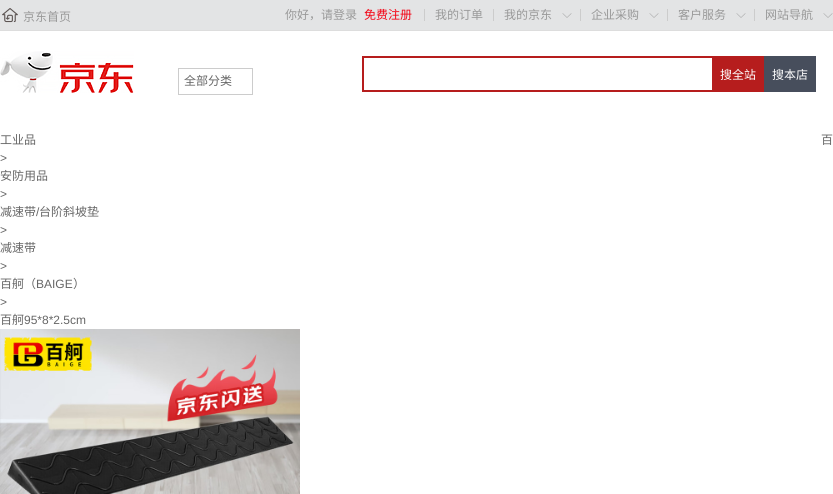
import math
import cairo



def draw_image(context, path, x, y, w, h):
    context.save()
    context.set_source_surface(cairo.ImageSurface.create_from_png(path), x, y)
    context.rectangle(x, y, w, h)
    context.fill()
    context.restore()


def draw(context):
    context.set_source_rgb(1, 1, 1)
    context.paint()
    context.set_source_rgb(227 / 255, 228 / 255, 229 / 255)
    context.rectangle(0, 0, 833, 30)
    context.fill()
    context.set_source_rgb(221 / 255, 221 / 255, 221 / 255)
    context.rectangle(0, 30, 833, 1)
    context.fill()
    draw_image(context, "images/1.png", 2, 8, 16, 15)
    context.set_source_rgb(204 / 255, 204 / 255, 204 / 255)
    context.rectangle(424, 9, 1, 12)
    context.fill()
    context.rectangle(493, 9, 1, 12)
    context.fill()
    draw_image(context, "images/2.png", 562, 13, 10, 5)
    context.rectangle(580, 9, 1, 12)
    context.fill()
    draw_image(context, "images/2.png", 649, 13, 10, 5)
    context.rectangle(667, 9, 1, 12)
    context.fill()
    draw_image(context, "images/2.png", 736, 13, 10, 5)
    context.rectangle(754, 9, 1, 12)
    context.fill()
    draw_image(context, "images/2.png", 823, 13, 10, 5)
    draw_image(context, "images/3.png", 0, 51, 134, 42)
    context.rectangle(178.5, 68.5, 74, 26)
    context.set_line_width(1)
    context.stroke()
    context.set_source_rgb(182 / 255, 29 / 255, 29 / 255)
    context.rectangle(362, 56, 350, 2)
    context.fill()
    context.rectangle(362, 90, 350, 2)
    context.fill()
    context.rectangle(362, 56, 2, 36)
    context.fill()
    context.rectangle(712, 56, 52, 36)
    context.fill()
    context.set_source_rgb(71 / 255, 78 / 255, 92 / 255)
    context.rectangle(764, 56, 52, 36)
    context.fill()
    draw_image(context, "images/4.png", 0, 329, 300, 165)
    context.select_font_face("Noto Sans CJK SC")
    context.set_font_size(12)
    context.set_source_rgb(153 / 255, 153 / 255, 153 / 255)
    context.move_to(23, 21)
    context.show_text("京东首页")
    context.move_to(285, 19)
    context.show_text("你好，请登录")
    context.set_source_rgb(243 / 255, 2 / 255, 19 / 255)
    context.move_to(364, 19)
    context.show_text("免费注册")
    context.set_source_rgb(153 / 255, 153 / 255, 153 / 255)
    context.move_to(435, 19)
    context.show_text("我的订单")
    context.move_to(504, 19)
    context.show_text("我的京东")
    context.move_to(591, 19)
    context.show_text("企业采购")
    context.move_to(678, 19)
    context.show_text("客户服务")
    context.move_to(765, 19)
    context.show_text("网站导航")
    context.set_source_rgb(102 / 255, 102 / 255, 102 / 255)
    context.move_to(184, 85)
    context.show_text("全部分类")
    context.set_source_rgb(1, 1, 1)
    context.move_to(720, 79)
    context.show_text("搜全站")
    context.move_to(772, 79)
    context.show_text("搜本店")
    context.set_source_rgb(102 / 255, 102 / 255, 102 / 255)
    context.move_to(0, 144)
    context.show_text("工业品")
    context.select_font_face("Liberation Sans")
    context.move_to(0, 162)
    context.show_text(">")
    context.select_font_face("Noto Sans CJK SC")
    context.move_to(0, 180)
    context.show_text("安防用品")
    context.select_font_face("Liberation Sans")
    context.move_to(0, 198)
    context.show_text(">")
    context.select_font_face("Noto Sans CJK SC")
    context.move_to(0, 216)
    context.show_text("减速带")
    context.select_font_face("Liberation Sans")
    context.move_to(36, 216)
    context.show_text("/")
    context.select_font_face("Noto Sans CJK SC")
    context.move_to(39, 216)
    context.show_text("台阶斜坡垫")
    context.select_font_face("Liberation Sans")
    context.move_to(0, 234)
    context.show_text(">")
    context.select_font_face("Noto Sans CJK SC")
    context.move_to(0, 252)
    context.show_text("减速带")
    context.select_font_face("Liberation Sans")
    context.move_to(0, 270)
    context.show_text(">")
    context.select_font_face("Noto Sans CJK SC")
    context.move_to(0, 288)
    context.show_text("百舸（")
    context.select_font_face("Liberation Sans")
    context.move_to(36, 288)
    context.show_text("BAIGE")
    context.select_font_face("Noto Sans CJK SC")
    context.move_to(73, 288)
    context.show_text("）")
    context.select_font_face("Liberation Sans")
    context.move_to(0, 306)
    context.show_text(">")
    context.select_font_face("Noto Sans CJK SC")
    context.move_to(0, 324)
    context.show_text("百舸")
    context.select_font_face("Liberation Sans")
    context.move_to(24, 324)
    context.show_text("95*8*2.5cm")
    context.select_font_face("Noto Sans CJK SC")
    context.move_to(821, 144)
    context.show_text("百")


surface = cairo.ImageSurface(cairo.Format.RGB24, 833, 494)
context = cairo.Context(surface)
options = cairo.FontOptions()
options.set_hint_metrics(cairo.HintMetrics.OFF)
options.set_hint_style(cairo.HintStyle.NONE)
context.set_font_options(options)
context.set_miter_limit(4)
draw(context)
surface.write_to_png("out.png")
